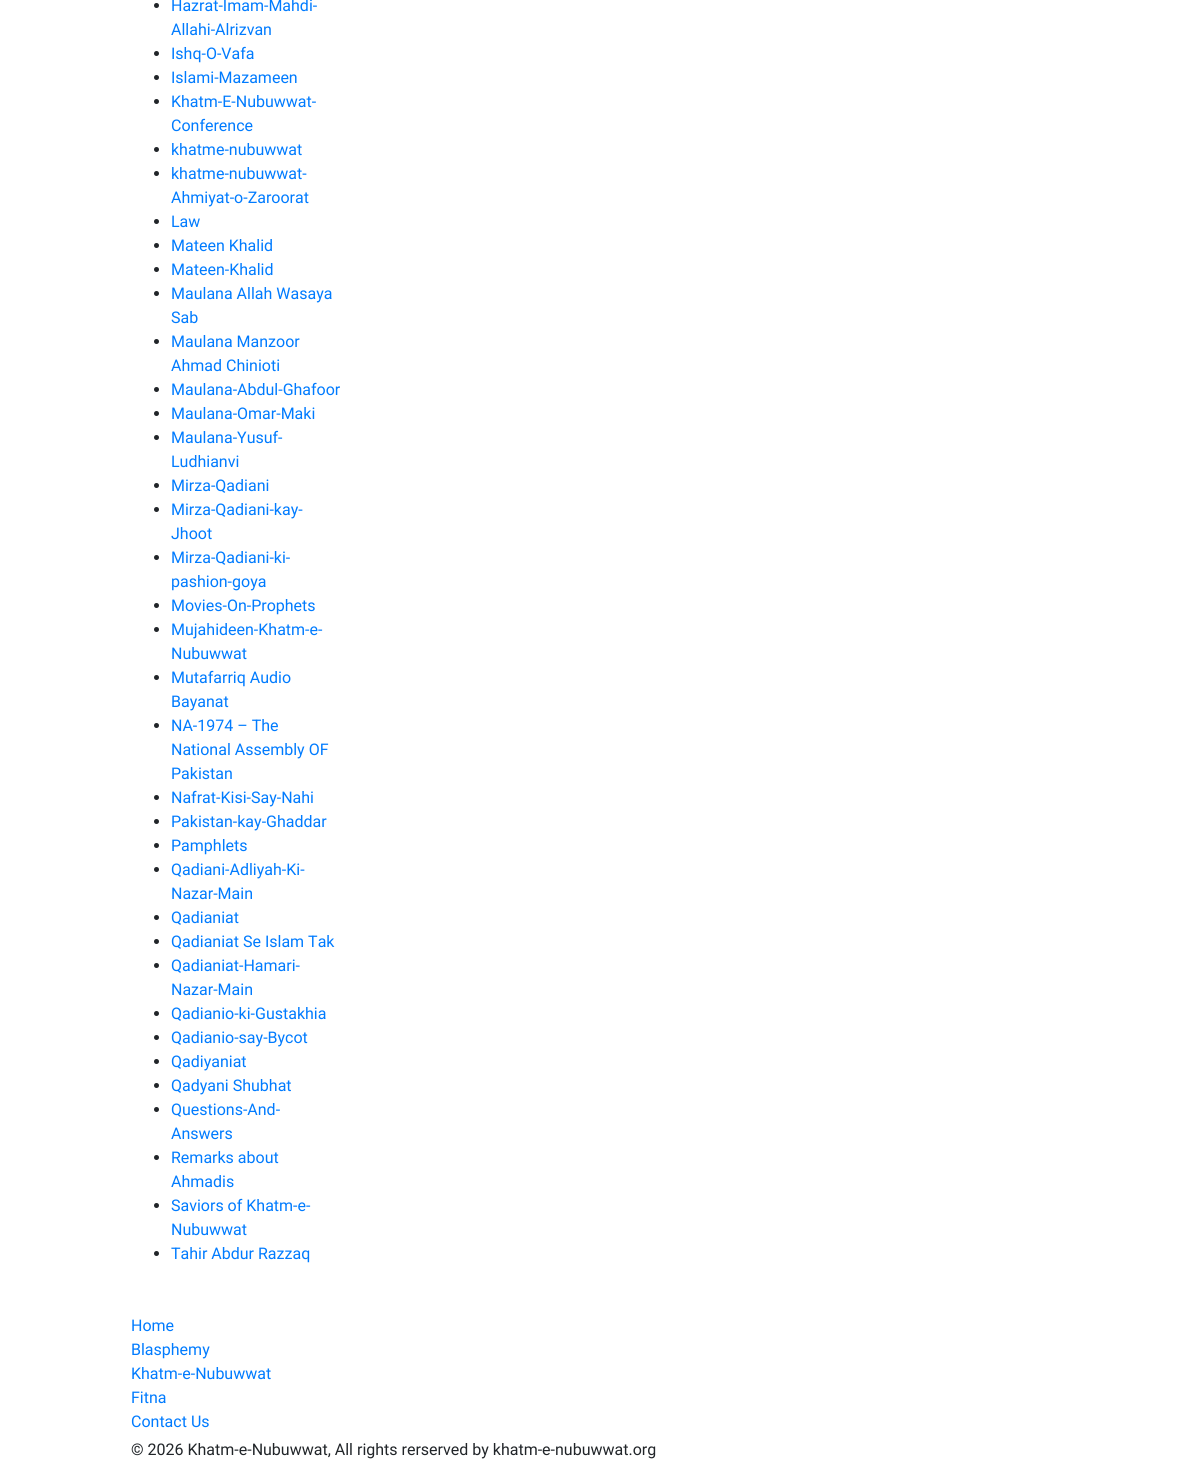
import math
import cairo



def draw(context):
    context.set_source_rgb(1, 1, 1)
    context.paint()
    context.set_source_rgb(33 / 255, 37 / 255, 41 / 255)
    context.arc(156.5, 5.5, 2.5, 0, 2 * math.pi)
    context.fill()
    context.arc(156.5, 53.5, 2.5, 0, 2 * math.pi)
    context.fill()
    context.arc(156.5, 77.5, 2.5, 0, 2 * math.pi)
    context.fill()
    context.arc(156.5, 101.5, 2.5, 0, 2 * math.pi)
    context.fill()
    context.arc(156.5, 149.5, 2.5, 0, 2 * math.pi)
    context.fill()
    context.arc(156.5, 173.5, 2.5, 0, 2 * math.pi)
    context.fill()
    context.arc(156.5, 221.5, 2.5, 0, 2 * math.pi)
    context.fill()
    context.arc(156.5, 245.5, 2.5, 0, 2 * math.pi)
    context.fill()
    context.arc(156.5, 269.5, 2.5, 0, 2 * math.pi)
    context.fill()
    context.arc(156.5, 293.5, 2.5, 0, 2 * math.pi)
    context.fill()
    context.arc(156.5, 341.5, 2.5, 0, 2 * math.pi)
    context.fill()
    context.arc(156.5, 389.5, 2.5, 0, 2 * math.pi)
    context.fill()
    context.arc(156.5, 413.5, 2.5, 0, 2 * math.pi)
    context.fill()
    context.arc(156.5, 437.5, 2.5, 0, 2 * math.pi)
    context.fill()
    context.arc(156.5, 485.5, 2.5, 0, 2 * math.pi)
    context.fill()
    context.arc(156.5, 509.5, 2.5, 0, 2 * math.pi)
    context.fill()
    context.arc(156.5, 557.5, 2.5, 0, 2 * math.pi)
    context.fill()
    context.arc(156.5, 605.5, 2.5, 0, 2 * math.pi)
    context.fill()
    context.arc(156.5, 629.5, 2.5, 0, 2 * math.pi)
    context.fill()
    context.arc(156.5, 677.5, 2.5, 0, 2 * math.pi)
    context.fill()
    context.arc(156.5, 725.5, 2.5, 0, 2 * math.pi)
    context.fill()
    context.arc(156.5, 797.5, 2.5, 0, 2 * math.pi)
    context.fill()
    context.arc(156.5, 821.5, 2.5, 0, 2 * math.pi)
    context.fill()
    context.arc(156.5, 845.5, 2.5, 0, 2 * math.pi)
    context.fill()
    context.arc(156.5, 869.5, 2.5, 0, 2 * math.pi)
    context.fill()
    context.arc(156.5, 917.5, 2.5, 0, 2 * math.pi)
    context.fill()
    context.arc(156.5, 941.5, 2.5, 0, 2 * math.pi)
    context.fill()
    context.arc(156.5, 965.5, 2.5, 0, 2 * math.pi)
    context.fill()
    context.arc(156.5, 1013.5, 2.5, 0, 2 * math.pi)
    context.fill()
    context.arc(156.5, 1037.5, 2.5, 0, 2 * math.pi)
    context.fill()
    context.arc(156.5, 1061.5, 2.5, 0, 2 * math.pi)
    context.fill()
    context.arc(156.5, 1085.5, 2.5, 0, 2 * math.pi)
    context.fill()
    context.arc(156.5, 1109.5, 2.5, 0, 2 * math.pi)
    context.fill()
    context.arc(156.5, 1157.5, 2.5, 0, 2 * math.pi)
    context.fill()
    context.arc(156.5, 1205.5, 2.5, 0, 2 * math.pi)
    context.fill()
    context.arc(156.5, 1253.5, 2.5, 0, 2 * math.pi)
    context.fill()
    context.select_font_face("Roboto")
    context.set_font_size(16)
    context.set_source_rgb(0, 123 / 255, 1)
    context.move_to(171, 11)
    context.show_text("Hazrat-Imam-Mahdi-")
    context.move_to(171, 35)
    context.show_text("Allahi-Alrizvan")
    context.move_to(171, 59)
    context.show_text("Ishq-O-Vafa")
    context.move_to(171, 83)
    context.show_text("Islami-Mazameen")
    context.move_to(171, 107)
    context.show_text("Khatm-E-Nubuwwat-")
    context.move_to(171, 131)
    context.show_text("Conference")
    context.move_to(171, 155)
    context.show_text("khatme-nubuwwat")
    context.move_to(171, 179)
    context.show_text("khatme-nubuwwat-")
    context.move_to(171, 203)
    context.show_text("Ahmiyat-o-Zaroorat")
    context.move_to(171, 227)
    context.show_text("Law")
    context.move_to(171, 251)
    context.show_text("Mateen Khalid")
    context.move_to(171, 275)
    context.show_text("Mateen-Khalid")
    context.move_to(171, 299)
    context.show_text("Maulana Allah Wasaya")
    context.move_to(171, 323)
    context.show_text("Sab")
    context.move_to(171, 347)
    context.show_text("Maulana Manzoor")
    context.move_to(171, 371)
    context.show_text("Ahmad Chinioti")
    context.move_to(171, 395)
    context.show_text("Maulana-Abdul-Ghafoor")
    context.move_to(171, 419)
    context.show_text("Maulana-Omar-Maki")
    context.move_to(171, 443)
    context.show_text("Maulana-Yusuf-")
    context.move_to(171, 467)
    context.show_text("Ludhianvi")
    context.move_to(171, 491)
    context.show_text("Mirza-Qadiani")
    context.move_to(171, 515)
    context.show_text("Mirza-Qadiani-kay-")
    context.move_to(171, 539)
    context.show_text("Jhoot")
    context.move_to(171, 563)
    context.show_text("Mirza-Qadiani-ki-")
    context.move_to(171, 587)
    context.show_text("pashion-goya")
    context.move_to(171, 611)
    context.show_text("Movies-On-Prophets")
    context.move_to(171, 635)
    context.show_text("Mujahideen-Khatm-e-")
    context.move_to(171, 659)
    context.show_text("Nubuwwat")
    context.move_to(171, 683)
    context.show_text("Mutafarriq Audio")
    context.move_to(171, 707)
    context.show_text("Bayanat")
    context.move_to(171, 731)
    context.show_text("NA-1974 – The")
    context.move_to(171, 755)
    context.show_text("National Assembly OF")
    context.move_to(171, 779)
    context.show_text("Pakistan")
    context.move_to(171, 803)
    context.show_text("Nafrat-Kisi-Say-Nahi")
    context.move_to(171, 827)
    context.show_text("Pakistan-kay-Ghaddar")
    context.move_to(171, 851)
    context.show_text("Pamphlets")
    context.move_to(171, 875)
    context.show_text("Qadiani-Adliyah-Ki-")
    context.move_to(171, 899)
    context.show_text("Nazar-Main")
    context.move_to(171, 923)
    context.show_text("Qadianiat")
    context.move_to(171, 947)
    context.show_text("Qadianiat Se Islam Tak")
    context.move_to(171, 971)
    context.show_text("Qadianiat-Hamari-")
    context.move_to(171, 995)
    context.show_text("Nazar-Main")
    context.move_to(171, 1019)
    context.show_text("Qadianio-ki-Gustakhia")
    context.move_to(171, 1043)
    context.show_text("Qadianio-say-Bycot")
    context.move_to(171, 1067)
    context.show_text("Qadiyaniat")
    context.move_to(171, 1091)
    context.show_text("Qadyani Shubhat")
    context.move_to(171, 1115)
    context.show_text("Questions-And-")
    context.move_to(171, 1139)
    context.show_text("Answers")
    context.move_to(171, 1163)
    context.show_text("Remarks about")
    context.move_to(171, 1187)
    context.show_text("Ahmadis")
    context.move_to(171, 1211)
    context.show_text("Saviors of Khatm-e-")
    context.move_to(171, 1235)
    context.show_text("Nubuwwat")
    context.move_to(171, 1259)
    context.show_text("Tahir Abdur Razzaq")
    context.move_to(131, 1331)
    context.show_text("Home")
    context.move_to(131, 1355)
    context.show_text("Blasphemy")
    context.move_to(131, 1379)
    context.show_text("Khatm-e-Nubuwwat")
    context.move_to(131, 1403)
    context.show_text("Fitna")
    context.move_to(131, 1427)
    context.show_text("Contact Us")
    context.set_source_rgb(33 / 255, 37 / 255, 41 / 255)
    context.move_to(131, 1455)
    context.show_text("© 2026 Khatm-e-Nubuwwat, All rights rerserved by khatm-e-nubuwwat.org")


surface = cairo.ImageSurface(cairo.Format.RGB24, 1192, 1470)
context = cairo.Context(surface)
options = cairo.FontOptions()
options.set_hint_metrics(cairo.HintMetrics.OFF)
options.set_hint_style(cairo.HintStyle.NONE)
context.set_font_options(options)
context.set_miter_limit(4)
draw(context)
surface.write_to_png("out.png")
